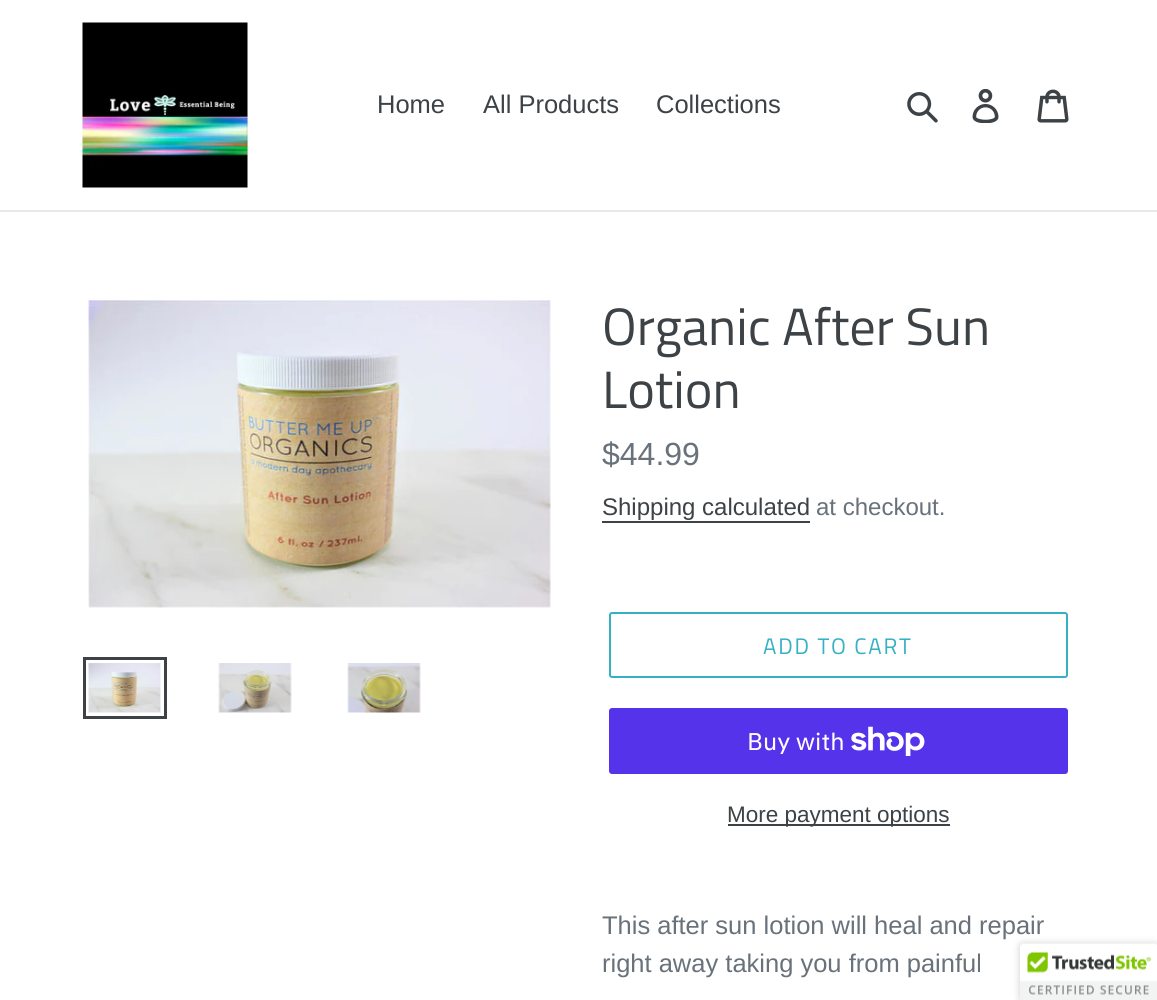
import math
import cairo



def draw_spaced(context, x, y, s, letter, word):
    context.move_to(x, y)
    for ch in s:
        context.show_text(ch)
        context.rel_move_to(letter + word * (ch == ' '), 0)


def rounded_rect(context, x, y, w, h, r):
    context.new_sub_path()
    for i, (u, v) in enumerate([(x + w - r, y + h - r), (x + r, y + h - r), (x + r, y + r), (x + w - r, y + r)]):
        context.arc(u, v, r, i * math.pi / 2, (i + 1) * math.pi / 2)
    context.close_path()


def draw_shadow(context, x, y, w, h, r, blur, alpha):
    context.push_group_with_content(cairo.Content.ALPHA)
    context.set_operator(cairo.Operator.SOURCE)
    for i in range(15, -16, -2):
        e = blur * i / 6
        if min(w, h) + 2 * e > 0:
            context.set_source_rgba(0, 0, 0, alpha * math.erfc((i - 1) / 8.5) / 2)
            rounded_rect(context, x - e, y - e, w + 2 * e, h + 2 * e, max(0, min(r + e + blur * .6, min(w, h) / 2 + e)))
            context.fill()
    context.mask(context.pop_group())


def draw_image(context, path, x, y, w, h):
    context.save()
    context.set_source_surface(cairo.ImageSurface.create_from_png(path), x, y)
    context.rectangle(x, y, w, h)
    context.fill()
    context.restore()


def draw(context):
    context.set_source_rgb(1, 1, 1)
    context.paint()
    context.set_source_rgb(232 / 255, 233 / 255, 235 / 255)
    context.rectangle(0, 210, 1157, 2)
    context.fill()
    draw_image(context, "images/1.png", 82, 22, 166, 166)
    draw_image(context, "images/2.png", 907, 92, 31, 31)
    draw_image(context, "images/3.png", 972, 89, 27, 34)
    draw_image(context, "images/4.png", 1037, 89, 32, 34)
    draw_image(context, "images/5.png", 88, 300, 463, 308)
    context.rectangle(84.5, 658.5, 81, 59)
    context.set_source_rgb(61 / 255, 66 / 255, 70 / 255)
    context.set_line_width(3)
    context.stroke()
    draw_image(context, "images/6.png", 88, 663, 73, 50)
    draw_image(context, "images/7.png", 218, 663, 74, 50)
    draw_image(context, "images/8.png", 347, 663, 74, 50)
    context.rectangle(602, 521, 208, 2)
    context.fill()
    rounded_rect(context, 610, 613, 457, 64, 2)
    context.set_source_rgb(54 / 255, 177 / 255, 195 / 255)
    context.set_line_width(2)
    context.stroke()
    context.set_source_rgb(84 / 255, 51 / 255, 235 / 255)
    rounded_rect(context, 609, 708, 459, 66, 3)
    context.fill()
    draw_image(context, "images/9.png", 851, 726, 74, 30)
    context.set_source_rgb(61 / 255, 66 / 255, 70 / 255)
    context.rectangle(728, 824, 222, 2)
    context.fill()
    context.set_source_rgb(0, 0, 0)
    draw_shadow(context, 1020, 944, 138, 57, 3, 4, 0.2)
    draw_image(context, "images/10.png", 1020, 943, 137, 57)
    context.select_font_face("Arimo")
    context.set_font_size(25.5)
    context.set_source_rgb(61 / 255, 66 / 255, 70 / 255)
    context.move_to(377, 113)
    context.show_text("Home")
    context.move_to(483, 113)
    context.show_text("All Products")
    context.move_to(656, 113)
    context.show_text("Collections")
    context.select_font_face("Titillium Web")
    context.set_font_size(52.5)
    context.move_to(602, 345)
    context.show_text("Organic After Sun")
    context.move_to(602, 408)
    context.show_text("Lotion")
    context.select_font_face("Arimo")
    context.set_font_size(32)
    context.set_source_rgb(105 / 255, 114 / 255, 123 / 255)
    context.move_to(602, 465)
    context.show_text("$44.99")
    context.set_font_size(24)
    context.set_source_rgb(61 / 255, 66 / 255, 70 / 255)
    context.move_to(602, 515)
    context.show_text("Shipping calculated")
    context.set_source_rgb(105 / 255, 114 / 255, 123 / 255)
    context.move_to(816, 515)
    context.show_text("at checkout.")
    context.select_font_face("Titillium Web")
    context.set_font_size(22.5)
    context.set_source_rgb(54 / 255, 177 / 255, 195 / 255)
    draw_spaced(context, 763, 654, "ADD TO CART", 1.75, 0)
    context.select_font_face("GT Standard")
    context.set_font_size(24)
    context.set_source_rgb(1, 1, 1)
    context.move_to(747, 750)
    context.show_text("Buy with")
    context.select_font_face("Arimo")
    context.set_font_size(22.5)
    context.set_source_rgb(61 / 255, 66 / 255, 70 / 255)
    context.move_to(727, 822)
    context.show_text("More payment options")
    context.set_font_size(25.5)
    context.set_source_rgb(105 / 255, 114 / 255, 123 / 255)
    context.move_to(602, 934)
    context.show_text("This after sun lotion will heal and repair")
    context.move_to(602, 972)
    context.show_text("right away taking you from painful")


surface = cairo.ImageSurface(cairo.Format.RGB24, 1157, 1000)
context = cairo.Context(surface)
options = cairo.FontOptions()
options.set_hint_metrics(cairo.HintMetrics.OFF)
options.set_hint_style(cairo.HintStyle.NONE)
context.set_font_options(options)
context.set_miter_limit(4)
draw(context)
surface.write_to_png("out.png")
